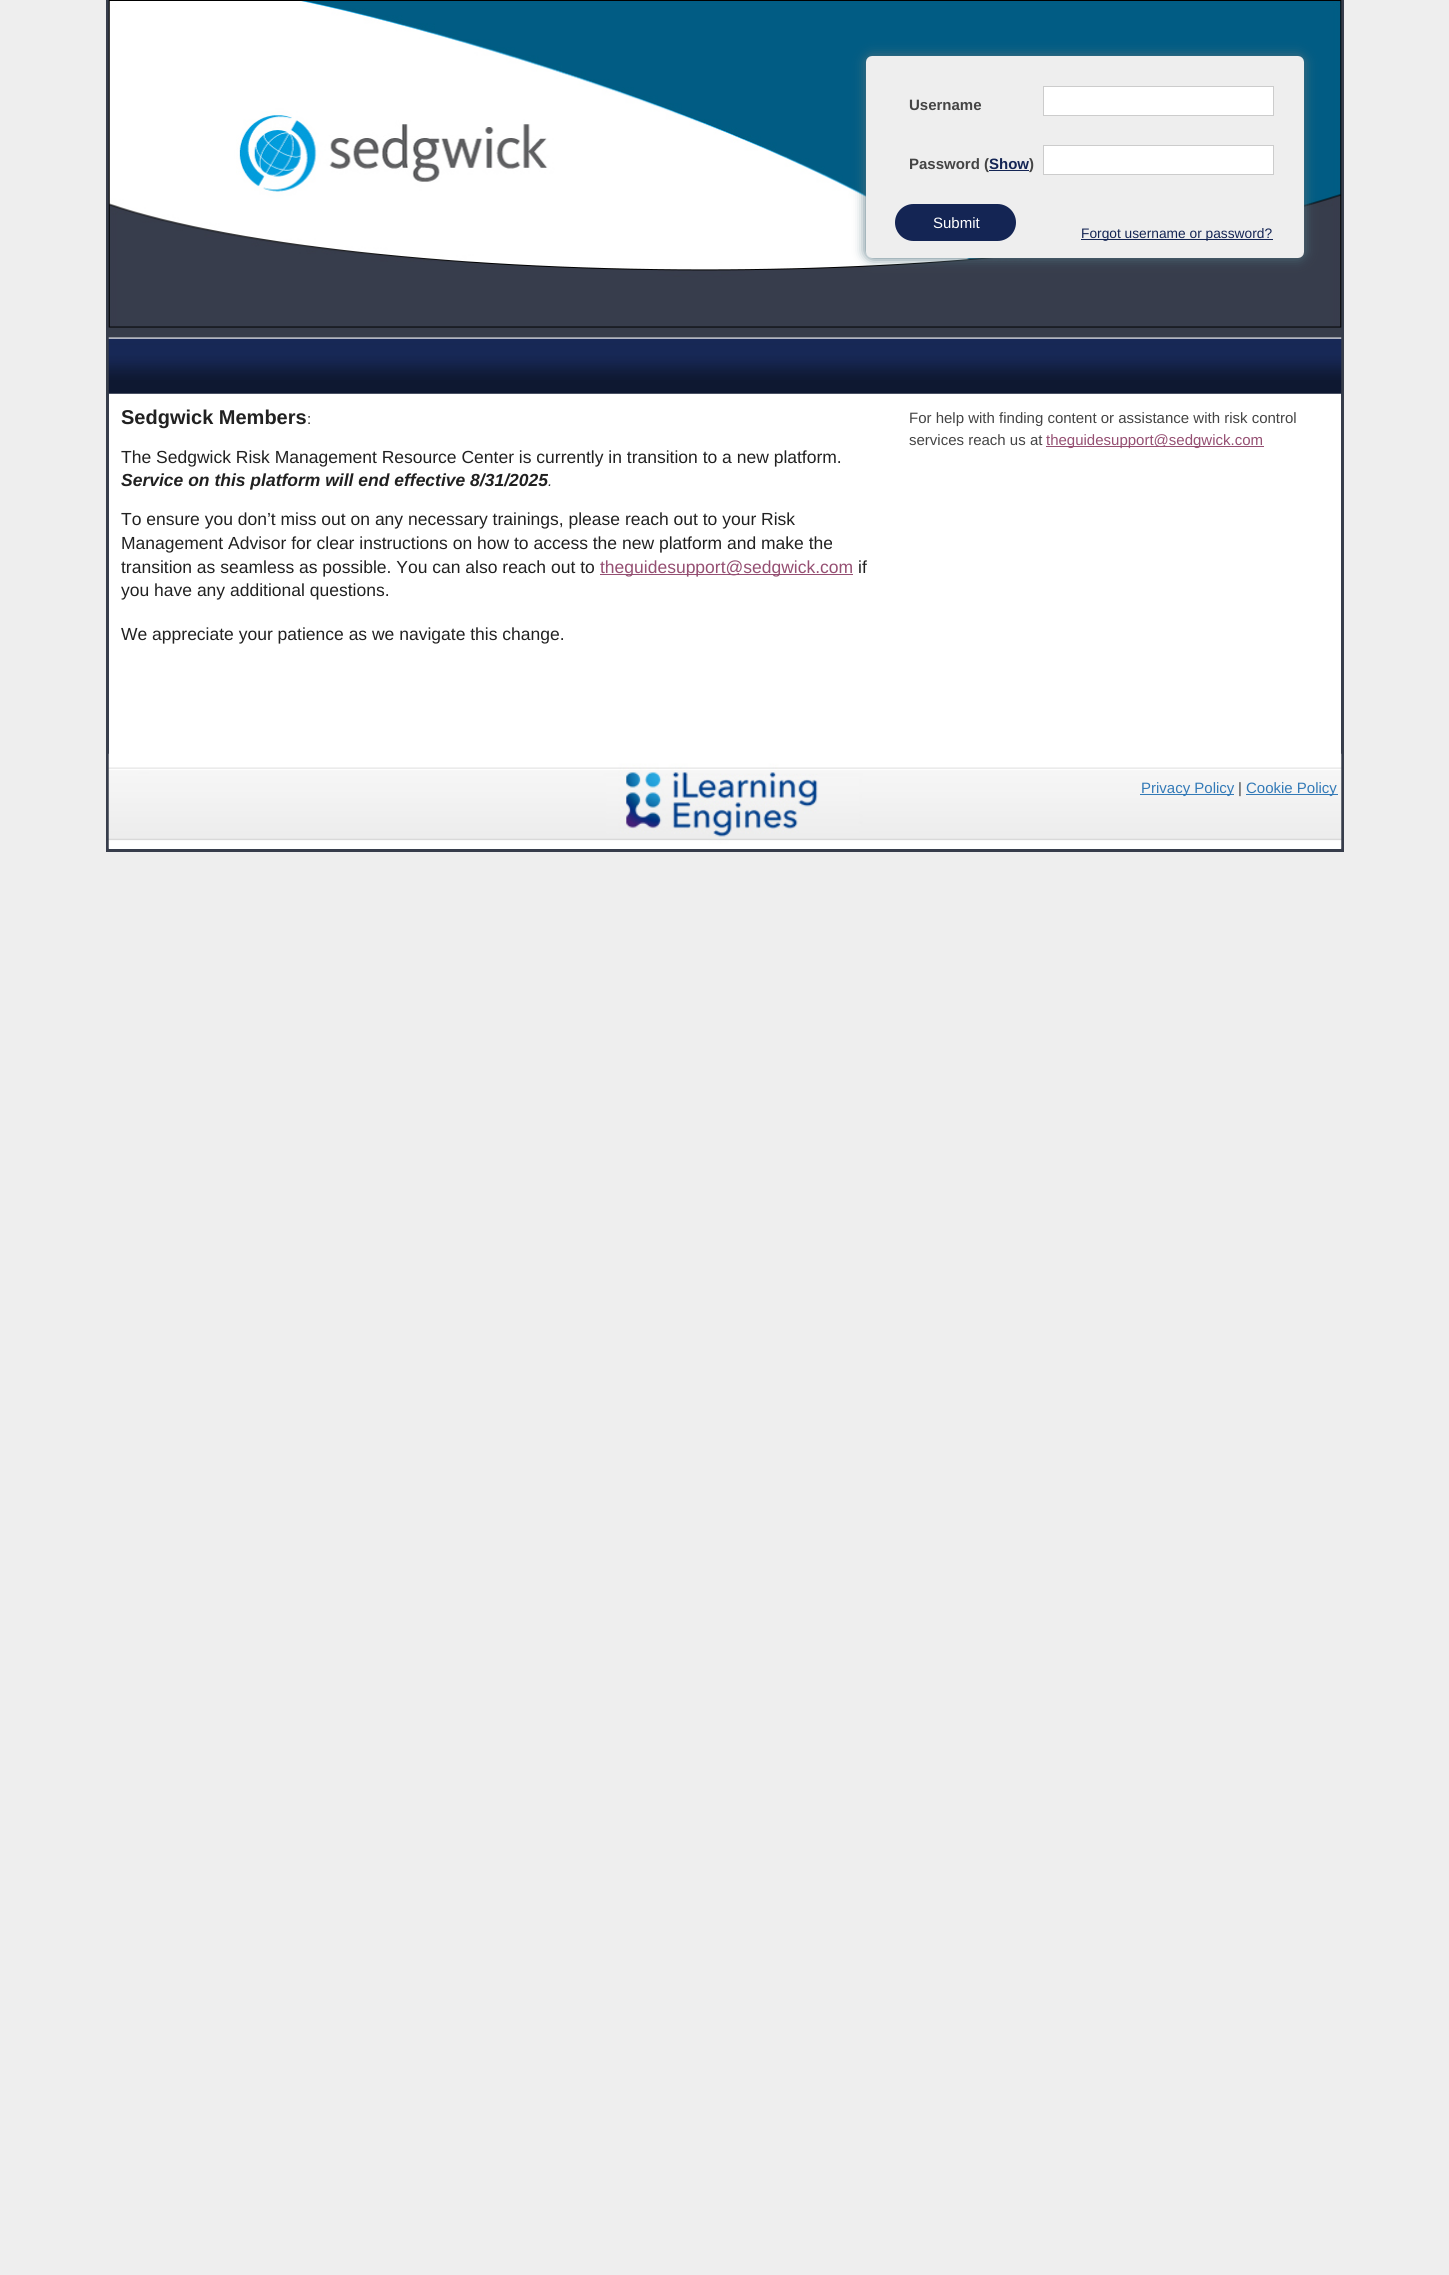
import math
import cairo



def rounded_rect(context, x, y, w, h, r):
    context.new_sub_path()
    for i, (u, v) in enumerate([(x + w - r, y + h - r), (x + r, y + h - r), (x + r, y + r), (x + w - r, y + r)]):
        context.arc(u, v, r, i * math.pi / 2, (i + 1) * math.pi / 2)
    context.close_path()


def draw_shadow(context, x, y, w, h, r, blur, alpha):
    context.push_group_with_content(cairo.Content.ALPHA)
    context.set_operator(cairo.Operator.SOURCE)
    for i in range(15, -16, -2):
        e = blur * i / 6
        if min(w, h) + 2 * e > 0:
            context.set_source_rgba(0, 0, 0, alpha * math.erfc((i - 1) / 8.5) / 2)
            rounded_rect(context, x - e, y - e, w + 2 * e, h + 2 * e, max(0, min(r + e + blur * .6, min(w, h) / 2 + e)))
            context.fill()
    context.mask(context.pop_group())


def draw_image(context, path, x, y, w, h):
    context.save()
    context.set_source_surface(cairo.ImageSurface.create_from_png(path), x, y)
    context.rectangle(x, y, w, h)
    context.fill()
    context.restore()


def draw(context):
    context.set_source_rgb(238 / 255, 238 / 255, 238 / 255)
    context.paint()
    context.set_source_rgb(1, 1, 1)
    context.rectangle(109, 393, 1232, 456)
    context.fill()
    context.set_source_rgb(55 / 255, 61 / 255, 75 / 255)
    context.rectangle(1341, 0, 3, 851)
    context.fill()
    context.rectangle(106, 849, 1238, 3)
    context.fill()
    context.rectangle(106, 0, 3, 851)
    context.fill()
    context.rectangle(109, 327, 1232, 11)
    context.fill()
    draw_image(context, "images/1.png", 108, 0, 1234, 328)
    context.set_source_rgb(78 / 255, 112 / 255, 124 / 255)
    draw_shadow(context, 866, 56, 438, 202, 6, 6, 1)
    context.set_source_rgb(238 / 255, 238 / 255, 238 / 255)
    rounded_rect(context, 869, 59, 432, 196, 3)
    context.fill_preserve()
    context.set_line_width(6)
    context.stroke()
    context.set_source_rgb(1, 1, 1)
    context.rectangle(1043.5, 86.5, 230, 29)
    context.fill_preserve()
    context.set_source_rgb(204 / 255, 204 / 255, 204 / 255)
    context.set_line_width(1)
    context.stroke()
    context.set_source_rgb(20 / 255, 37 / 255, 84 / 255)
    context.rectangle(989, 170, 40, 1)
    context.fill()
    context.set_source_rgb(1, 1, 1)
    context.rectangle(1043.5, 145.5, 230, 29)
    context.fill_preserve()
    context.set_source_rgb(204 / 255, 204 / 255, 204 / 255)
    context.stroke()
    context.set_source_rgb(20 / 255, 37 / 255, 84 / 255)
    rounded_rect(context, 895, 204, 121, 37, 18.5)
    context.fill()
    context.rectangle(1081, 239, 192, 1)
    context.fill()
    draw_image(context, "images/2.png", 108, 337, 1234, 57)
    context.set_source_rgb(149 / 255, 79 / 255, 114 / 255)
    context.rectangle(600, 574, 253, 1)
    context.fill()
    context.rectangle(1046, 446, 218, 1)
    context.fill()
    draw_image(context, "images/3.png", 108, 753, 1234, 96)
    context.set_source_rgb(51 / 255, 122 / 255, 183 / 255)
    context.rectangle(1140, 794, 94, 1)
    context.fill()
    context.rectangle(1246, 794, 92, 1)
    context.fill()
    context.select_font_face("Liberation Sans", cairo.FontSlant.NORMAL, cairo.FontWeight.BOLD)
    context.set_font_size(15)
    context.set_source_rgb(68 / 255, 68 / 255, 68 / 255)
    context.move_to(909, 110)
    context.show_text("Username")
    context.move_to(909, 169)
    context.show_text("Password (")
    context.set_source_rgb(20 / 255, 37 / 255, 84 / 255)
    context.move_to(989, 169)
    context.show_text("Show")
    context.set_source_rgb(68 / 255, 68 / 255, 68 / 255)
    context.move_to(1029, 169)
    context.show_text(")")
    context.select_font_face("Liberation Sans")
    context.set_source_rgb(1, 1, 1)
    context.move_to(933, 228)
    context.show_text("Submit")
    context.set_font_size(13.75)
    context.set_source_rgb(20 / 255, 37 / 255, 84 / 255)
    context.move_to(1081, 238)
    context.show_text("Forgot username or password?")
    context.select_font_face("Liberation Sans", cairo.FontSlant.NORMAL, cairo.FontWeight.BOLD)
    context.set_font_size(20)
    context.set_source_rgb(33 / 255, 33 / 255, 33 / 255)
    context.move_to(121, 424)
    context.show_text("Sedgwick Members")
    context.select_font_face("Liberation Sans")
    context.set_font_size(15)
    context.move_to(307, 424)
    context.show_text(":")
    context.set_font_size(17.5)
    context.move_to(121, 463)
    context.show_text("The Sedgwick Risk Management Resource Center is currently in transition to a new platform.")
    context.select_font_face("Liberation Sans", cairo.FontSlant.ITALIC, cairo.FontWeight.BOLD)
    context.move_to(121, 486)
    context.show_text("Service on this platform will end effective 8/31/2025")
    context.select_font_face("Liberation Sans", cairo.FontSlant.ITALIC)
    context.set_font_size(15)
    context.move_to(548, 486)
    context.show_text(".")
    context.select_font_face("Liberation Sans")
    context.set_font_size(17.5)
    context.move_to(121, 525)
    context.show_text("To ensure you don’t miss out on any necessary trainings, please reach out to your Risk")
    context.move_to(121, 549)
    context.show_text("Management Advisor for clear instructions on how to access the new platform and make the")
    context.move_to(121, 573)
    context.show_text("transition as seamless as possible. You can also reach out to")
    context.set_source_rgb(149 / 255, 79 / 255, 114 / 255)
    context.move_to(600, 573)
    context.show_text("theguidesupport@sedgwick.com")
    context.set_source_rgb(33 / 255, 33 / 255, 33 / 255)
    context.move_to(858, 573)
    context.show_text("if")
    context.move_to(121, 596)
    context.show_text("you have any additional questions.")
    context.move_to(121, 640)
    context.show_text("We appreciate your patience as we navigate this change.")
    context.set_font_size(15)
    context.set_source_rgb(68 / 255, 68 / 255, 68 / 255)
    context.move_to(909, 423)
    context.show_text("For help with finding content or assistance with risk control")
    context.move_to(909, 445)
    context.show_text("services reach us at")
    context.set_source_rgb(149 / 255, 79 / 255, 114 / 255)
    context.move_to(1046, 445)
    context.show_text("theguidesupport@sedgwick.com")
    context.set_source_rgb(51 / 255, 122 / 255, 183 / 255)
    context.move_to(1141, 793)
    context.show_text("Privacy Policy")
    context.set_source_rgb(68 / 255, 68 / 255, 68 / 255)
    context.move_to(1238, 793)
    context.show_text("|")
    context.set_source_rgb(51 / 255, 122 / 255, 183 / 255)
    context.move_to(1246, 793)
    context.show_text("Cookie Policy")


surface = cairo.ImageSurface(cairo.Format.RGB24, 1449, 2275)
context = cairo.Context(surface)
options = cairo.FontOptions()
options.set_hint_metrics(cairo.HintMetrics.OFF)
options.set_hint_style(cairo.HintStyle.NONE)
context.set_font_options(options)
context.set_miter_limit(4)
draw(context)
surface.write_to_png("out.png")
